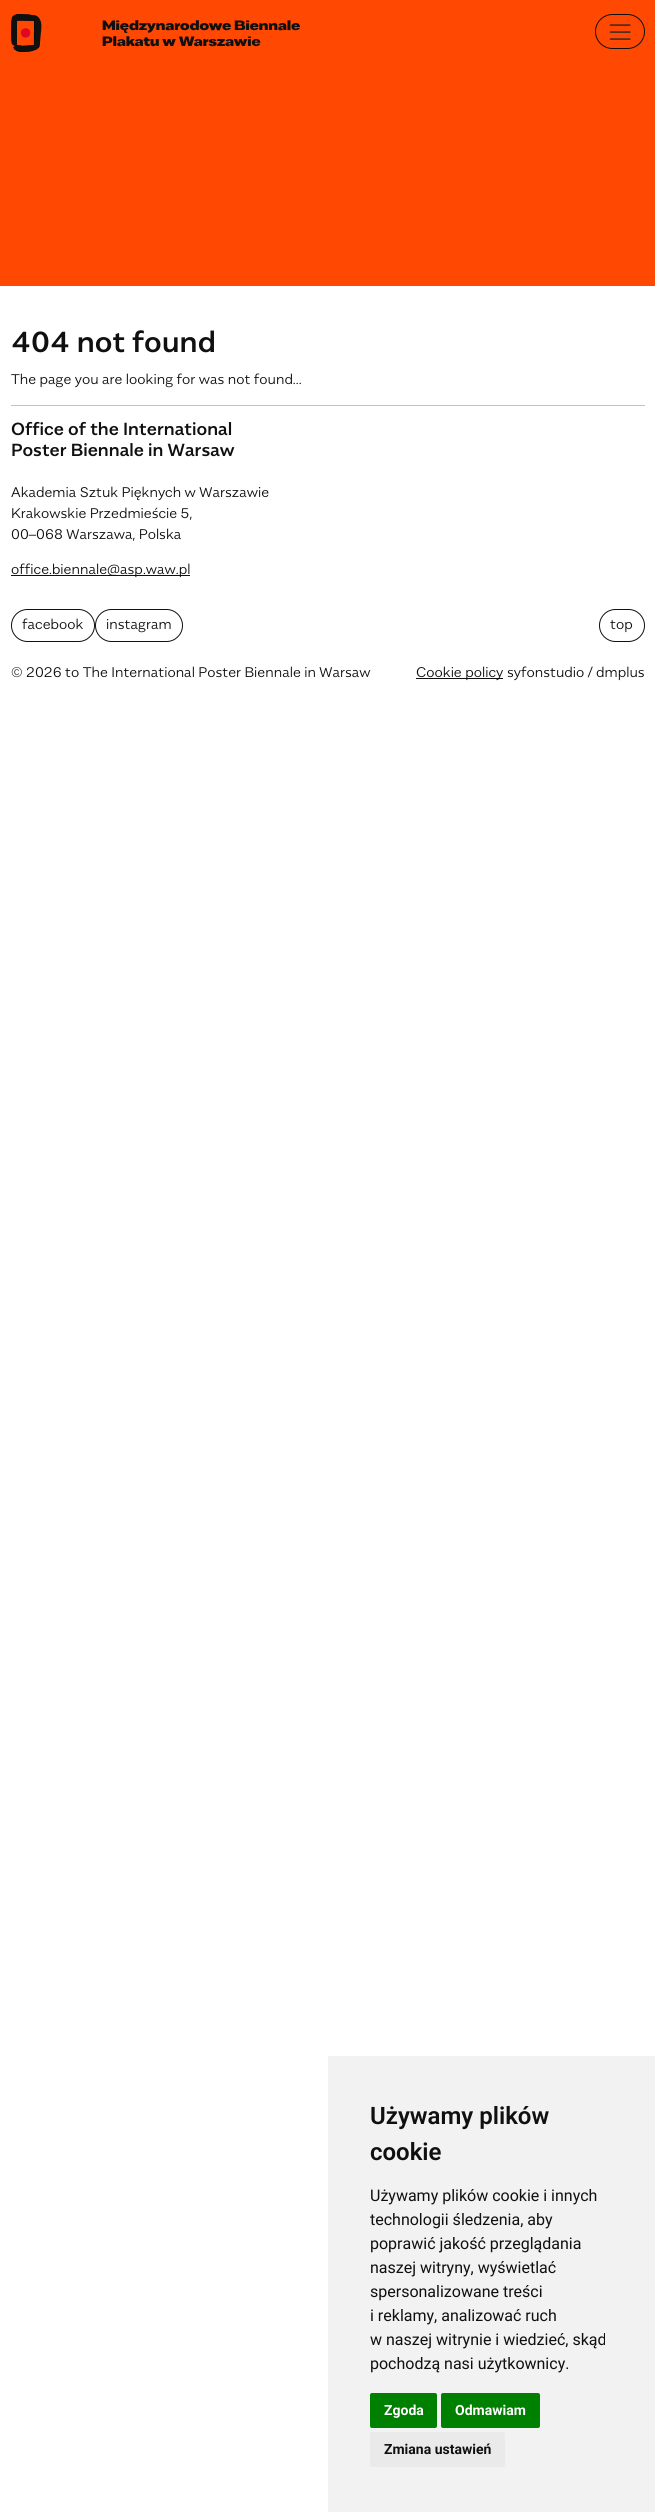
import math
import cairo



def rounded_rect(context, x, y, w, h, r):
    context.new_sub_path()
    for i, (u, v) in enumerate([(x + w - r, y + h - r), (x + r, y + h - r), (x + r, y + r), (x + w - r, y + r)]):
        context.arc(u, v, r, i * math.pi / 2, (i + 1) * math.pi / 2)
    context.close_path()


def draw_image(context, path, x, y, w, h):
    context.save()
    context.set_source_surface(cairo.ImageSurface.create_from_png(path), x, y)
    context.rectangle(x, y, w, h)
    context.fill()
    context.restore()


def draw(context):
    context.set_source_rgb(1, 1, 1)
    context.paint()
    context.set_source_rgb(1, 72 / 255, 2 / 255)
    context.rectangle(0, 0, 655, 286)
    context.fill()
    draw_image(context, "images/1.png", 11, 14, 289, 38)
    rounded_rect(context, 595.5, 14.5, 49, 34, 17)
    context.set_source_rgb(16 / 255, 16 / 255, 16 / 255)
    context.set_line_width(1)
    context.stroke()
    draw_image(context, "images/2.png", 609, 24, 22, 16)
    context.set_source_rgb(195 / 255, 195 / 255, 195 / 255)
    context.rectangle(11, 405, 634, 1)
    context.fill()
    context.set_source_rgb(16 / 255, 16 / 255, 16 / 255)
    context.rectangle(11, 575, 179, 1)
    context.fill()
    rounded_rect(context, 11.5, 609.5, 83, 32, 16)
    context.stroke()
    rounded_rect(context, 95.5, 609.5, 87, 32, 16)
    context.stroke()
    rounded_rect(context, 599.5, 609.5, 45, 32, 16)
    context.stroke()
    context.rectangle(416, 678, 87, 1)
    context.fill()
    context.set_source_rgb(242 / 255, 242 / 255, 242 / 255)
    context.rectangle(328, 2056, 327, 456)
    context.fill()
    context.set_source_rgb(0, 128 / 255, 0)
    rounded_rect(context, 370, 2393, 67, 35, 2)
    context.fill()
    rounded_rect(context, 441, 2393, 99, 35, 2)
    context.fill()
    context.set_source_rgb(234 / 255, 234 / 255, 234 / 255)
    rounded_rect(context, 370, 2432, 135, 35, 2)
    context.fill()
    context.select_font_face("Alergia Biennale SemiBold")
    context.set_font_size(29)
    context.set_source_rgb(16 / 255, 16 / 255, 16 / 255)
    context.move_to(11, 352)
    context.show_text("404 not found")
    context.select_font_face("Alergia Biennale")
    context.set_font_size(14)
    context.move_to(11, 384)
    context.show_text("The page you are looking for was not found...")
    context.select_font_face("Alergia Biennale SemiBold")
    context.set_font_size(17.5)
    context.move_to(11, 435)
    context.show_text("Office of the International")
    context.move_to(11, 456)
    context.show_text("Poster Biennale in Warsaw")
    context.select_font_face("Alergia Biennale")
    context.set_font_size(14)
    context.move_to(11, 497)
    context.show_text("Akademia Sztuk Pięknych w Warszawie")
    context.move_to(11, 518)
    context.show_text("Krakowskie Przedmieście 5,")
    context.move_to(11, 539)
    context.show_text("00–068 Warszawa, Polska")
    context.move_to(11, 574)
    context.show_text("office.biennale@asp.waw.pl")
    context.move_to(22, 629)
    context.show_text("facebook")
    context.move_to(106, 629)
    context.show_text("instagram")
    context.move_to(610, 629)
    context.show_text("top")
    context.move_to(11, 677)
    context.show_text("© 2026 to The International Poster Biennale in Warsaw")
    context.move_to(416, 677)
    context.show_text("Cookie policy")
    context.move_to(507, 677)
    context.show_text("syfonstudio / dmplus")
    context.select_font_face("Roboto SemiBold")
    context.set_font_size(24)
    context.move_to(370, 2124)
    context.show_text("Używamy plików")
    context.move_to(370, 2160)
    context.show_text("cookie")
    context.select_font_face("Roboto")
    context.set_font_size(16)
    context.move_to(370, 2201)
    context.show_text("Używamy plików cookie i innych")
    context.move_to(370, 2225)
    context.show_text("technologii śledzenia, aby")
    context.move_to(370, 2249)
    context.show_text("poprawić jakość przeglądania")
    context.move_to(370, 2273)
    context.show_text("naszej witryny, wyświetlać")
    context.move_to(370, 2297)
    context.show_text("spersonalizowane treści")
    context.move_to(370, 2321)
    context.show_text("i reklamy, analizować ruch")
    context.move_to(370, 2345)
    context.show_text("w naszej witrynie i wiedzieć, skąd")
    context.move_to(370, 2369)
    context.show_text("pochodzą nasi użytkownicy.")
    context.select_font_face("Roboto", cairo.FontSlant.NORMAL, cairo.FontWeight.BOLD)
    context.set_font_size(14)
    context.set_source_rgb(1, 1, 1)
    context.move_to(384, 2415)
    context.show_text("Zgoda")
    context.move_to(455, 2415)
    context.show_text("Odmawiam")
    context.set_source_rgb(16 / 255, 16 / 255, 16 / 255)
    context.move_to(384, 2454)
    context.show_text("Zmiana ustawień")


surface = cairo.ImageSurface(cairo.Format.RGB24, 655, 2512)
context = cairo.Context(surface)
options = cairo.FontOptions()
options.set_hint_metrics(cairo.HintMetrics.OFF)
options.set_hint_style(cairo.HintStyle.NONE)
context.set_font_options(options)
context.set_miter_limit(4)
draw(context)
surface.write_to_png("out.png")
